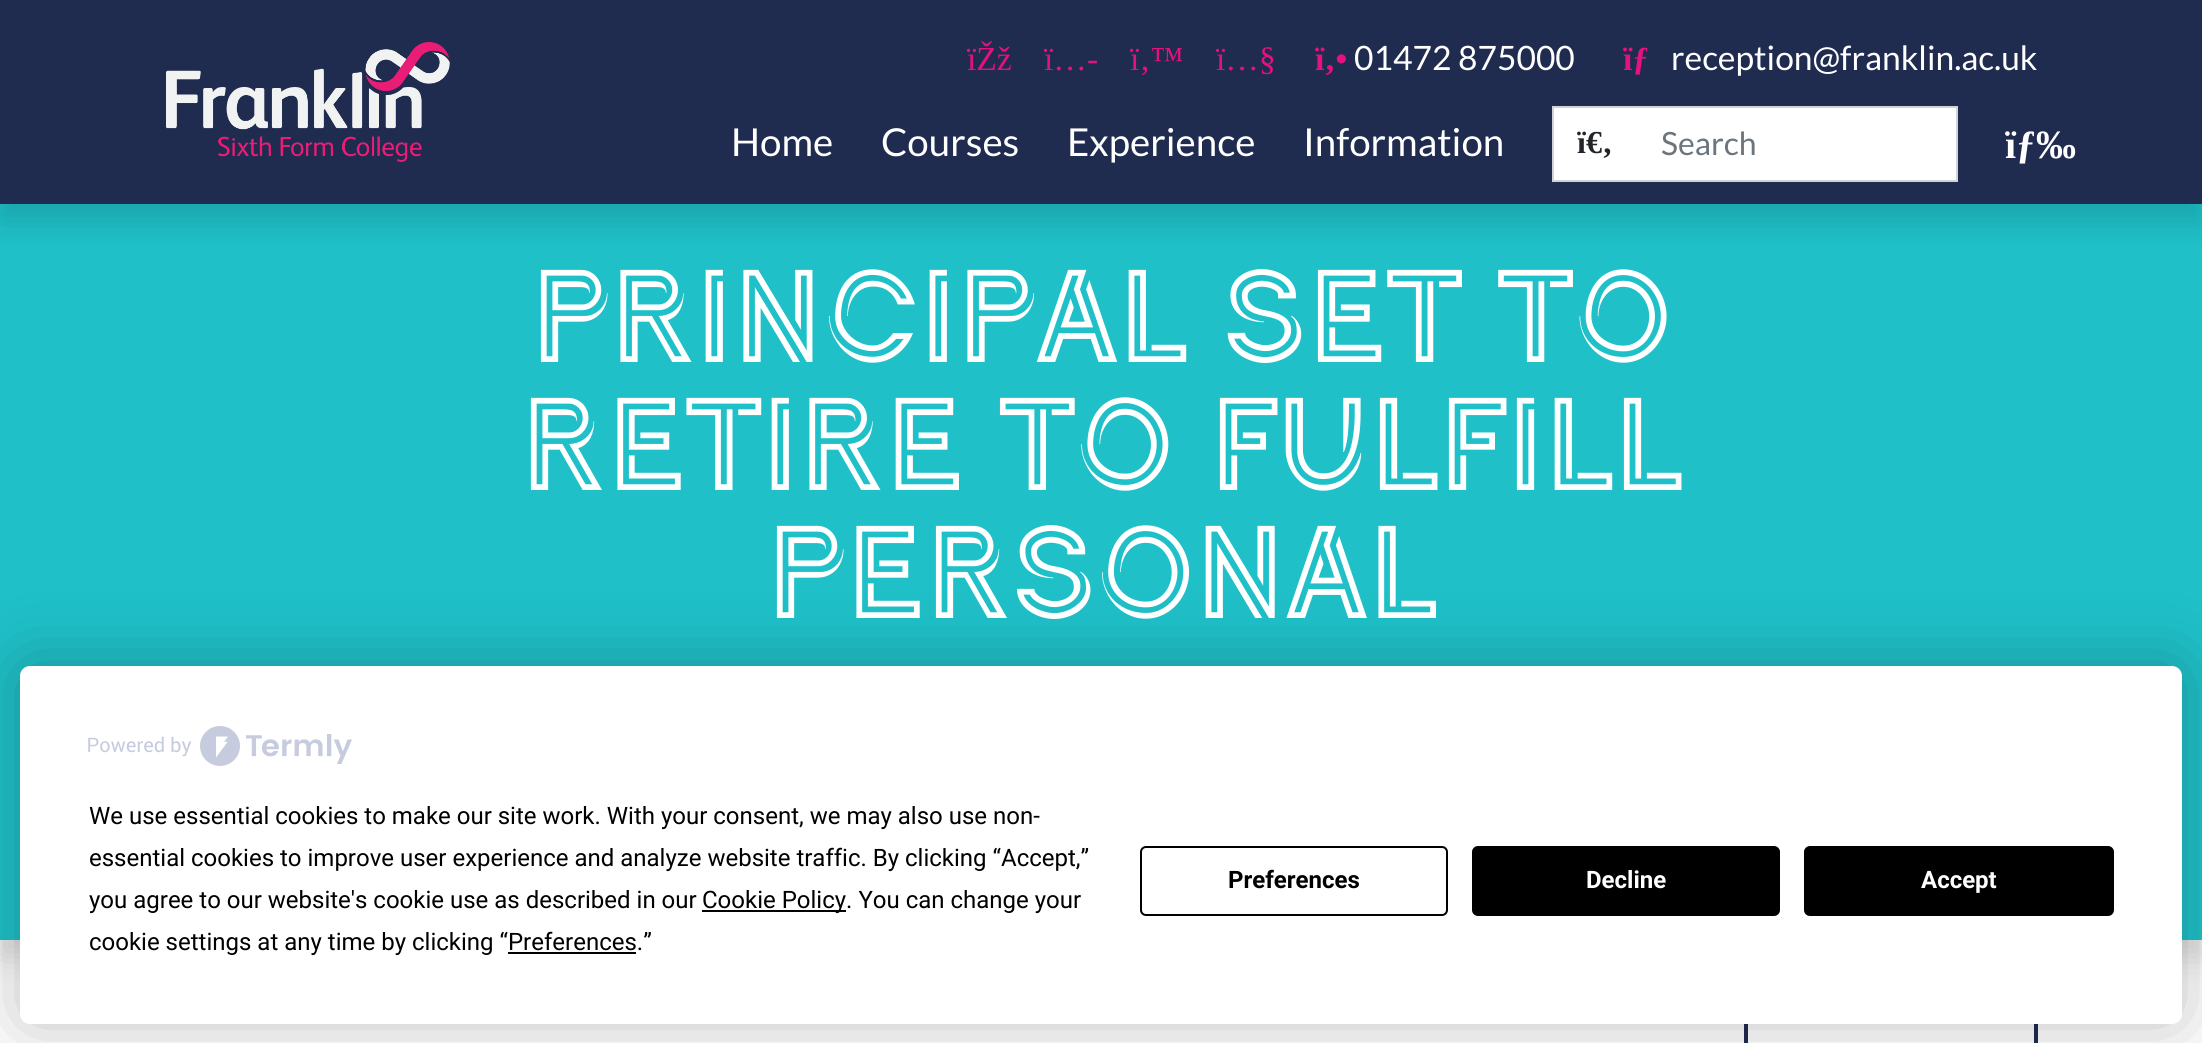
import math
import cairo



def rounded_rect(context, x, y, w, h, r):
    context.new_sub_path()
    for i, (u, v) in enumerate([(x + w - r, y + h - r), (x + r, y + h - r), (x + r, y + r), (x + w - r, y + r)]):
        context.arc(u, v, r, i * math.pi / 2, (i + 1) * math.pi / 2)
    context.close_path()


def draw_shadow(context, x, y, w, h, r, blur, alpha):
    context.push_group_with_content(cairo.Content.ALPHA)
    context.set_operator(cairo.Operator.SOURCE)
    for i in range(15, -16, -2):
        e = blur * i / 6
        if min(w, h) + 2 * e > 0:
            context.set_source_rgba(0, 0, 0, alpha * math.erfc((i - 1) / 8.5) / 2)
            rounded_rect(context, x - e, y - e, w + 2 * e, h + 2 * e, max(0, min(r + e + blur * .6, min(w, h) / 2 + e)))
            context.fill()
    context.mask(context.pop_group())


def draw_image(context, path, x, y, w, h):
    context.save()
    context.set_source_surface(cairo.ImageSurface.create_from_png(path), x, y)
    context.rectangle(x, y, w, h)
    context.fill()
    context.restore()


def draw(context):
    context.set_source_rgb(1, 1, 1)
    context.paint()
    context.rectangle(1746, 1006, 290, 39)
    context.set_source_rgb(32 / 255, 43 / 255, 80 / 255)
    context.set_line_width(4)
    context.stroke()
    context.set_source_rgb(0, 0, 0)
    draw_shadow(context, 0, 220, 2202, 736, 0, 16, 0.15)
    context.set_source_rgb(31 / 255, 192 / 255, 200 / 255)
    context.rectangle(0, 204, 2202, 736)
    context.fill()
    context.set_source_rgb(0, 0, 0)
    draw_shadow(context, 0, 16, 2202, 204, 0, 16, 0.15)
    context.set_source_rgb(32 / 255, 43 / 255, 80 / 255)
    context.rectangle(0, 0, 2202, 204)
    context.fill()
    draw_image(context, "images/1.png", 166, 42, 284, 120)
    context.set_source_rgb(1, 1, 1)
    context.rectangle(1553, 107, 86, 74)
    context.fill_preserve()
    context.set_source_rgb(206 / 255, 212 / 255, 218 / 255)
    context.set_line_width(2)
    context.stroke()
    context.set_source_rgb(1, 1, 1)
    context.rectangle(1638, 108, 318, 72)
    context.fill()
    context.set_source_rgb(206 / 255, 212 / 255, 218 / 255)
    context.rectangle(1638, 106, 320, 2)
    context.fill()
    context.rectangle(1956, 106, 2, 76)
    context.fill()
    context.rectangle(1638, 180, 320, 2)
    context.fill()
    context.set_source_rgb(0, 0, 0)
    draw_shadow(context, 20, 666, 2162, 358, 10, 35, 0.25)
    context.set_source_rgb(1, 1, 1)
    rounded_rect(context, 20, 666, 2162, 358, 10)
    context.fill()
    draw_image(context, "images/2.png", 88, 726, 264, 40)
    context.set_source_rgb(0, 0, 0)
    context.rectangle(702, 910, 144, 2)
    context.fill()
    context.rectangle(508, 952, 128, 2)
    context.fill()
    rounded_rect(context, 1141, 847, 306, 68, 5)
    context.stroke()
    rounded_rect(context, 1473, 847, 306, 68, 5)
    context.fill_preserve()
    context.stroke()
    rounded_rect(context, 1805, 847, 308, 68, 5)
    context.fill_preserve()
    context.stroke()
    context.select_font_face("Liberation Serif")
    context.set_font_size(33.6)
    context.set_source_rgb(229 / 255, 17 / 255, 124 / 255)
    context.move_to(967, 70)
    context.show_text("ïŽž")
    context.move_to(1044, 70)
    context.show_text("ï…-")
    context.move_to(1130, 70)
    context.show_text("ï‚™")
    context.move_to(1216, 70)
    context.show_text("ï…§")
    context.select_font_face("Liberation Serif", cairo.FontSlant.NORMAL, cairo.FontWeight.BOLD)
    context.move_to(1315, 70)
    context.show_text("ï‚•")
    context.select_font_face("Lato")
    context.set_source_rgb(1, 1, 1)
    context.move_to(1354, 70)
    context.show_text("01472 875000")
    context.select_font_face("Liberation Serif", cairo.FontSlant.NORMAL, cairo.FontWeight.BOLD)
    context.set_source_rgb(229 / 255, 17 / 255, 124 / 255)
    context.move_to(1623, 70)
    context.show_text("ïƒ")
    context.select_font_face("Lato")
    context.set_source_rgb(1, 1, 1)
    context.move_to(1671, 70)
    context.show_text("reception@franklin.ac.uk")
    context.set_font_size(38.5)
    context.move_to(731, 156)
    context.show_text("Home")
    context.move_to(881, 156)
    context.show_text("Courses")
    context.move_to(1067, 156)
    context.show_text("Experience")
    context.move_to(1303, 156)
    context.show_text("Information")
    context.select_font_face("Liberation Serif", cairo.FontSlant.NORMAL, cairo.FontWeight.BOLD)
    context.set_font_size(32)
    context.set_source_rgb(33 / 255, 37 / 255, 41 / 255)
    context.move_to(1577, 153)
    context.show_text("ï€‚")
    context.select_font_face("Lato")
    context.set_source_rgb(108 / 255, 117 / 255, 125 / 255)
    context.move_to(1661, 155)
    context.show_text("Search")
    context.select_font_face("Liberation Serif", cairo.FontSlant.NORMAL, cairo.FontWeight.BOLD)
    context.set_font_size(40)
    context.set_source_rgb(1, 1, 1)
    context.move_to(2005, 158)
    context.show_text("ïƒ‰")
    context.select_font_face("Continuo")
    context.set_font_size(140)
    context.move_to(530, 362)
    context.show_text("PRINCIPAL SET TO")
    context.move_to(520, 490)
    context.show_text("RETIRE TO FULFILL")
    context.move_to(766, 618)
    context.show_text("PERSONAL")
    context.select_font_face("Roboto")
    context.set_font_size(24)
    context.set_source_rgb(0, 0, 0)
    context.move_to(89, 824)
    context.show_text("We use essential cookies to make our site work. With your consent, we may also use non-")
    context.move_to(89, 866)
    context.show_text("essential cookies to improve user experience and analyze website traffic. By clicking “Accept,”")
    context.move_to(89, 908)
    context.show_text("you agree to our website's cookie use as described in our")
    context.move_to(702, 908)
    context.show_text("Cookie Policy. You can change your")
    context.move_to(89, 950)
    context.show_text("cookie settings at any time by clicking “Preferences.”")
    context.select_font_face("Roboto", cairo.FontSlant.NORMAL, cairo.FontWeight.BOLD)
    context.move_to(1228, 888)
    context.show_text("Preferences")
    context.set_source_rgb(1, 1, 1)
    context.move_to(1586, 888)
    context.show_text("Decline")
    context.move_to(1921, 888)
    context.show_text("Accept")


surface = cairo.ImageSurface(cairo.Format.RGB24, 2202, 1043)
context = cairo.Context(surface)
options = cairo.FontOptions()
options.set_hint_metrics(cairo.HintMetrics.OFF)
options.set_hint_style(cairo.HintStyle.NONE)
context.set_font_options(options)
context.set_miter_limit(4)
draw(context)
surface.write_to_png("out.png")
